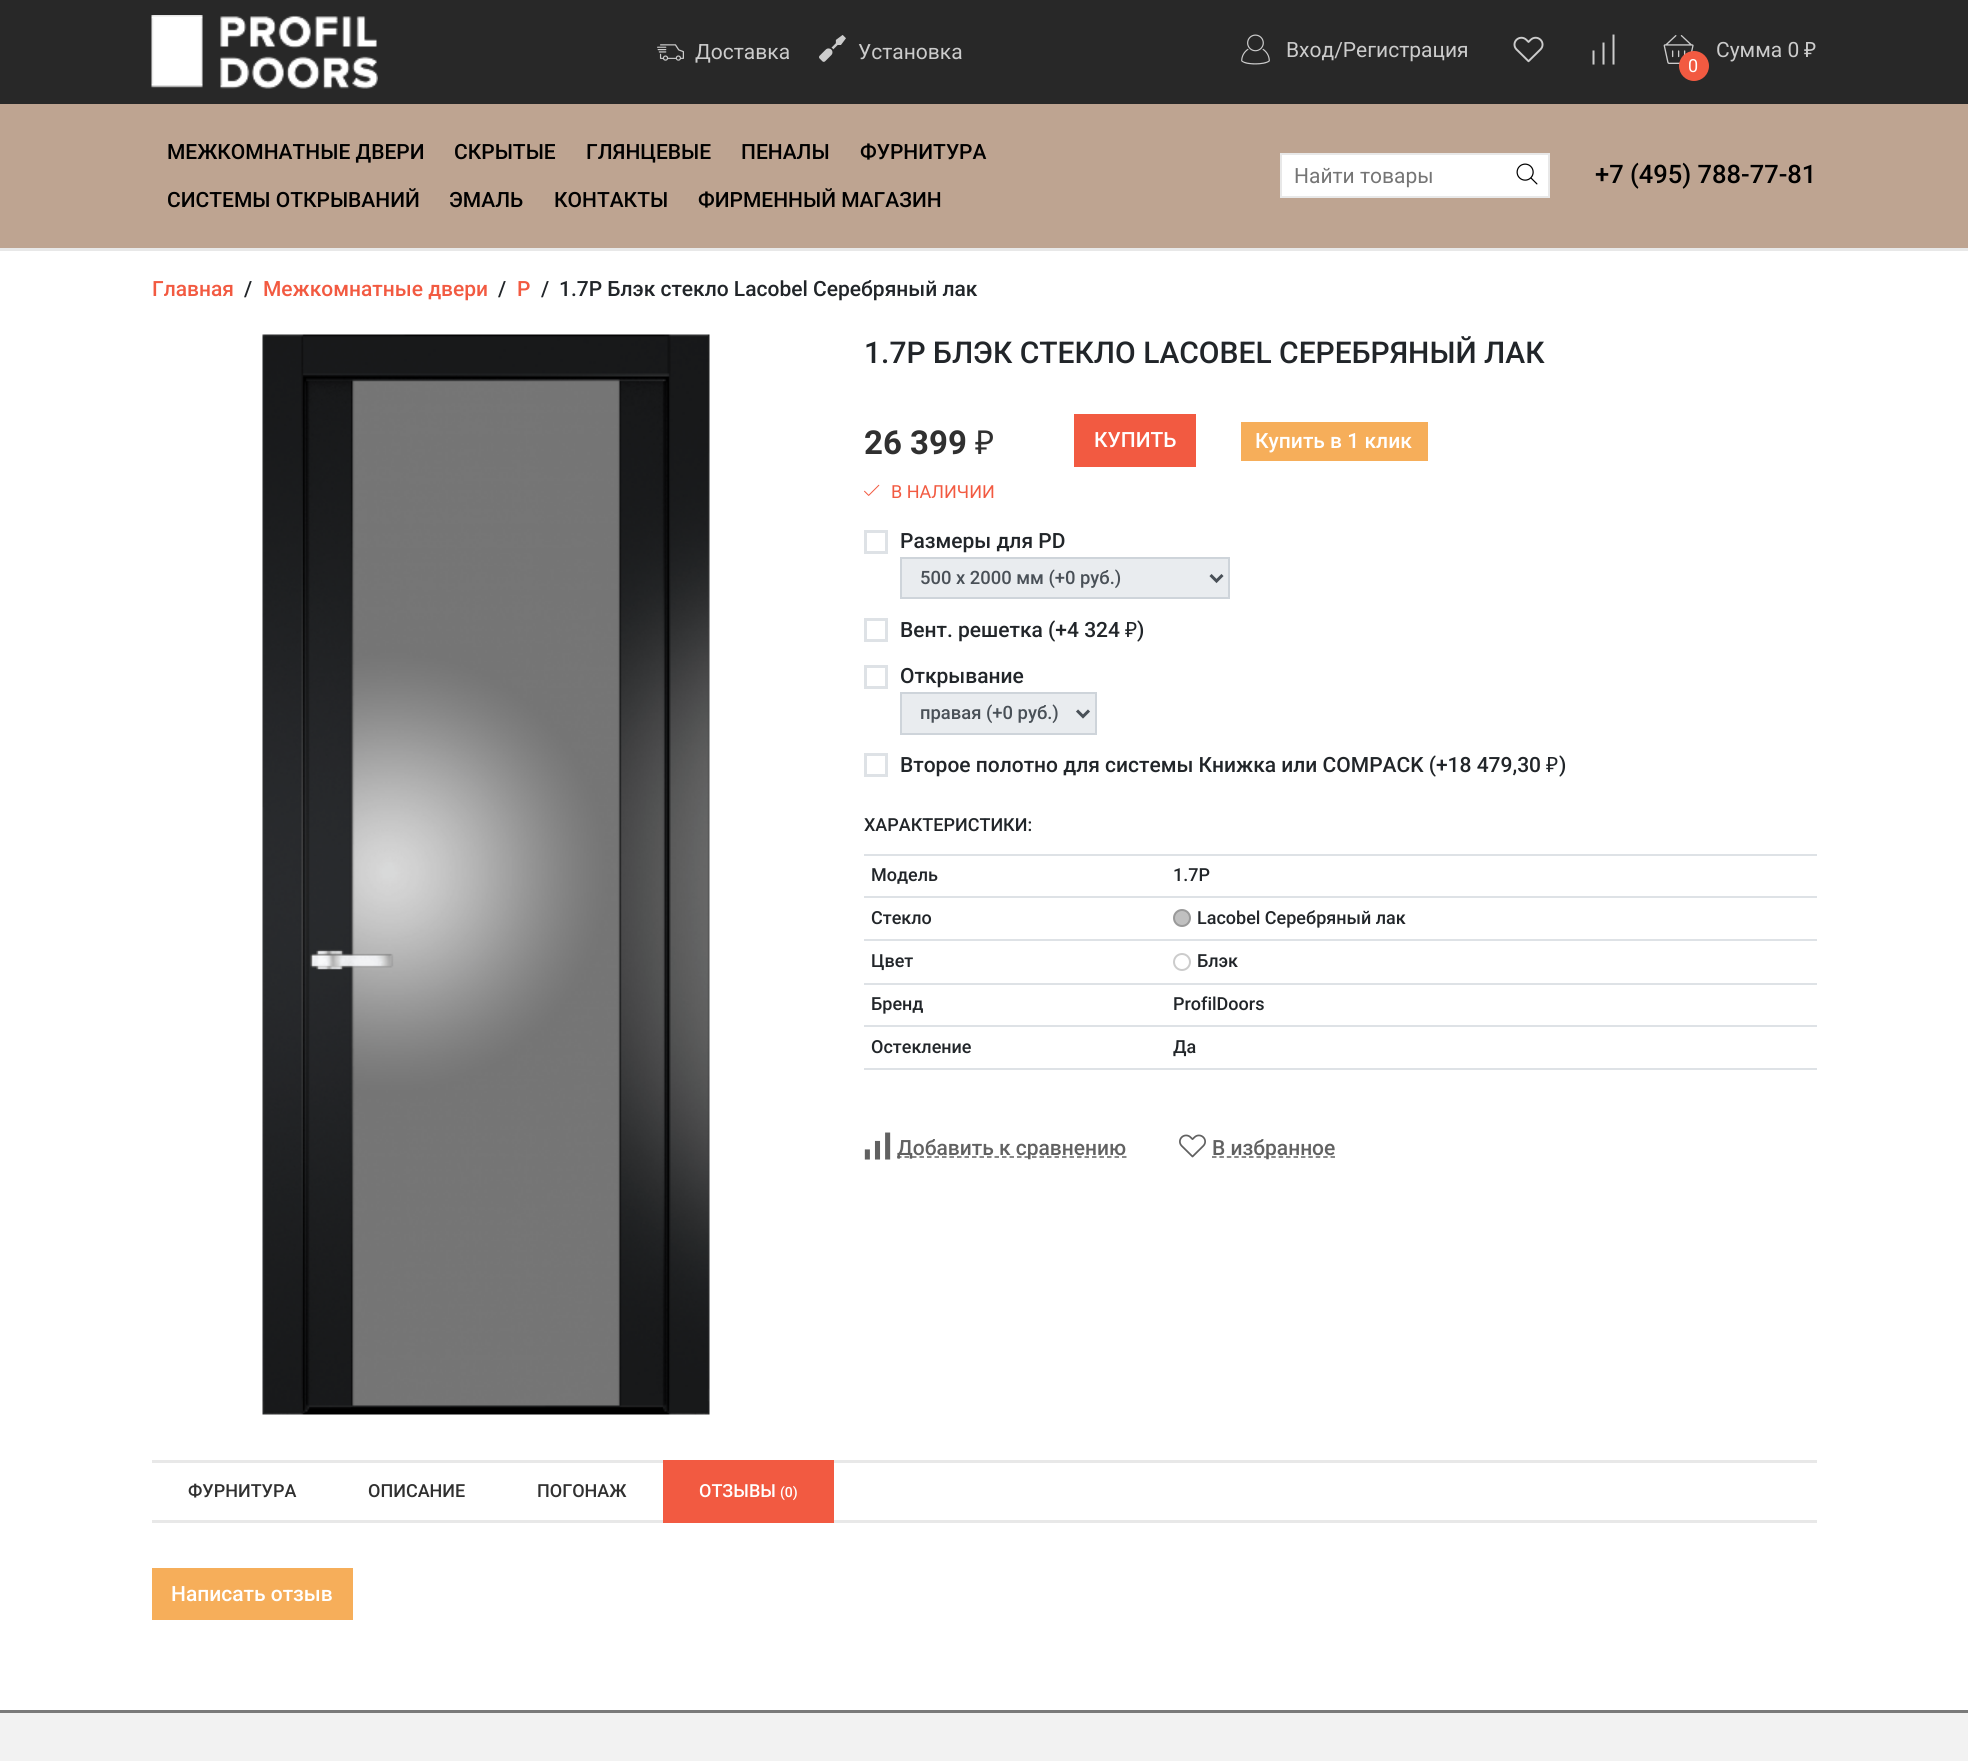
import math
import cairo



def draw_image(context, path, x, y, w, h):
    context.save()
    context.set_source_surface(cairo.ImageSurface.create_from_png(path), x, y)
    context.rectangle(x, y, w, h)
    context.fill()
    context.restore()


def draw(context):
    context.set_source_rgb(1, 1, 1)
    context.paint()
    context.set_source_rgb(40 / 255, 40 / 255, 40 / 255)
    context.rectangle(0, 0, 1968, 104)
    context.fill()
    draw_image(context, "images/1.png", 151, 15, 227, 74)
    draw_image(context, "images/2.png", 657, 44, 27, 17)
    draw_image(context, "images/3.png", 819, 35, 27, 27)
    draw_image(context, "images/4.png", 1241, 34, 29, 31)
    draw_image(context, "images/5.png", 1513, 36, 31, 27)
    draw_image(context, "images/6.png", 1592, 34, 23, 31)
    draw_image(context, "images/7.png", 1663, 35, 31, 29)
    context.set_source_rgb(242 / 255, 90 / 255, 65 / 255)
    context.arc(1694, 66, 15, 0, 2 * math.pi)
    context.fill()
    context.set_source_rgb(190 / 255, 164 / 255, 145 / 255)
    context.rectangle(0, 104, 1968, 144)
    context.fill()
    context.set_source_rgb(232 / 255, 232 / 255, 232 / 255)
    context.rectangle(0, 248, 1968, 3)
    context.fill()
    context.set_source_rgb(1, 1, 1)
    context.rectangle(1281, 154, 268, 43)
    context.fill_preserve()
    context.set_source_rgb(232 / 255, 232 / 255, 232 / 255)
    context.stroke()
    draw_image(context, "images/8.png", 1516, 163, 22, 22)
    draw_image(context, "images/9.png", 262, 334, 448, 1081)
    context.set_source_rgb(242 / 255, 90 / 255, 65 / 255)
    context.rectangle(1074, 414, 122, 53)
    context.fill()
    context.set_source_rgb(246 / 255, 174 / 255, 90 / 255)
    context.rectangle(1241, 422, 187, 39)
    context.fill()
    draw_image(context, "images/10.png", 864, 484, 16, 12)
    context.rectangle(865.5, 531.5, 21, 21)
    context.set_source_rgb(222 / 255, 226 / 255, 230 / 255)
    context.set_line_width(3)
    context.stroke()
    context.set_source_rgb(233 / 255, 236 / 255, 239 / 255)
    context.rectangle(901, 558, 328, 40)
    context.fill_preserve()
    context.set_source_rgb(206 / 255, 212 / 255, 218 / 255)
    context.set_line_width(2)
    context.stroke()
    context.new_path()
    context.move_to(1210.5, 575)
    context.line_to(1216.5, 581)
    context.line_to(1222.5, 575)
    context.set_source_rgb(73 / 255, 80 / 255, 87 / 255)
    context.set_line_width(3)
    context.stroke()
    context.rectangle(865.5, 619.5, 21, 21)
    context.set_source_rgb(222 / 255, 226 / 255, 230 / 255)
    context.stroke()
    context.rectangle(865.5, 666.5, 21, 21)
    context.stroke()
    context.set_source_rgb(233 / 255, 236 / 255, 239 / 255)
    context.rectangle(901, 693, 195, 41)
    context.fill_preserve()
    context.set_source_rgb(206 / 255, 212 / 255, 218 / 255)
    context.set_line_width(2)
    context.stroke()
    context.new_path()
    context.move_to(1077, 710.5)
    context.line_to(1083, 716.5)
    context.line_to(1089, 710.5)
    context.set_source_rgb(73 / 255, 80 / 255, 87 / 255)
    context.set_line_width(3)
    context.stroke()
    context.rectangle(865.5, 754.5, 21, 21)
    context.set_source_rgb(222 / 255, 226 / 255, 230 / 255)
    context.stroke()
    context.rectangle(864, 854, 953, 2)
    context.fill()
    context.rectangle(864, 896, 953, 2)
    context.fill()
    context.set_source_rgb(192 / 255, 192 / 255, 192 / 255)
    context.arc(1182, 918, 9, 0, 2 * math.pi)
    context.fill()
    context.arc(1182, 918, 8, 0, 2 * math.pi)
    context.set_source_rgba(0, 0, 0, 0.2)
    context.set_line_width(2)
    context.stroke()
    context.set_source_rgb(222 / 255, 226 / 255, 230 / 255)
    context.rectangle(864, 939, 953, 2)
    context.fill()
    context.arc(1182, 962, 8, 0, 2 * math.pi)
    context.set_source_rgb(204 / 255, 204 / 255, 204 / 255)
    context.stroke()
    context.set_source_rgb(222 / 255, 226 / 255, 230 / 255)
    context.rectangle(864, 983, 953, 2)
    context.fill()
    context.rectangle(864, 1025, 953, 2)
    context.fill()
    context.rectangle(864, 1068, 953, 2)
    context.fill()
    draw_image(context, "images/11.png", 864, 1132, 27, 28)
    context.new_path()
    context.move_to(897, 1157)
    context.line_to(1126.5, 1157)
    context.set_source_rgb(97 / 255, 97 / 255, 97 / 255)
    context.set_line_width(1.5)
    context.set_dash([4.5, 3])
    context.stroke()
    draw_image(context, "images/12.png", 1179, 1134, 27, 24)
    context.new_path()
    context.move_to(1212, 1157)
    context.line_to(1335, 1157)
    context.set_dash([4.5, 2.91])
    context.stroke()
    context.set_source_rgb(232 / 255, 232 / 255, 232 / 255)
    context.rectangle(152, 1460, 1665, 3)
    context.fill()
    context.rectangle(152, 1520, 1665, 3)
    context.fill()
    context.set_source_rgb(242 / 255, 90 / 255, 65 / 255)
    context.rectangle(663, 1460, 171, 63)
    context.fill()
    context.set_source_rgb(246 / 255, 174 / 255, 90 / 255)
    context.rectangle(152, 1568, 201, 52)
    context.fill()
    context.set_source_rgb(242 / 255, 242 / 255, 242 / 255)
    context.rectangle(0, 1713, 1968, 48)
    context.fill()
    context.set_source_rgb(122 / 255, 122 / 255, 122 / 255)
    context.rectangle(0, 1710, 1968, 3)
    context.fill()
    context.select_font_face("Roboto")
    context.set_font_size(21)
    context.set_source_rgb(204 / 255, 204 / 255, 204 / 255)
    context.move_to(695, 59)
    context.show_text("Доставка")
    context.move_to(858, 59)
    context.show_text("Установка")
    context.move_to(1286, 57)
    context.show_text("Вход/Регистрация")
    context.move_to(1716, 57)
    context.show_text("Сумма 0")
    context.select_font_face("Noto Sans")
    context.move_to(1804, 57)
    context.show_text("₽")
    context.select_font_face("Roboto")
    context.set_font_size(18)
    context.set_source_rgb(1, 1, 1)
    context.move_to(1688, 72)
    context.show_text("0")
    context.select_font_face("Roboto Medium")
    context.set_font_size(21)
    context.set_source_rgb(0, 0, 0)
    context.move_to(167, 159)
    context.show_text("МЕЖКОМНАТНЫЕ ДВЕРИ")
    context.move_to(454, 159)
    context.show_text("СКРЫТЫЕ")
    context.move_to(586, 159)
    context.show_text("ГЛЯНЦЕВЫЕ")
    context.move_to(741, 159)
    context.show_text("ПЕНАЛЫ")
    context.move_to(860, 159)
    context.show_text("ФУРНИТУРА")
    context.move_to(167, 207)
    context.show_text("СИСТЕМЫ ОТКРЫВАНИЙ")
    context.move_to(449, 207)
    context.show_text("ЭМАЛЬ")
    context.move_to(554, 207)
    context.show_text("КОНТАКТЫ")
    context.move_to(698, 207)
    context.show_text("ФИРМЕННЫЙ МАГАЗИН")
    context.select_font_face("Roboto")
    context.set_source_rgb(117 / 255, 117 / 255, 117 / 255)
    context.move_to(1294, 183)
    context.show_text("Найти товары")
    context.select_font_face("Roboto Medium")
    context.set_font_size(25.5)
    context.set_source_rgb(0, 0, 0)
    context.move_to(1595, 183)
    context.show_text("+7 (495) 788-77-81")
    context.set_font_size(21)
    context.set_source_rgb(242 / 255, 90 / 255, 65 / 255)
    context.move_to(152, 296)
    context.show_text("Главная")
    context.set_source_rgb(33 / 255, 37 / 255, 41 / 255)
    context.move_to(244, 296)
    context.show_text("/")
    context.set_source_rgb(242 / 255, 90 / 255, 65 / 255)
    context.move_to(263, 296)
    context.show_text("Межкомнатные двери")
    context.set_source_rgb(33 / 255, 37 / 255, 41 / 255)
    context.move_to(498, 296)
    context.show_text("/")
    context.set_source_rgb(242 / 255, 90 / 255, 65 / 255)
    context.move_to(517, 296)
    context.show_text("P")
    context.set_source_rgb(33 / 255, 37 / 255, 41 / 255)
    context.move_to(541, 296)
    context.show_text("/")
    context.move_to(559, 296)
    context.show_text("1.7P Блэк стекло Lacobel Серебряный лак")
    context.set_font_size(30)
    context.move_to(864, 363)
    context.show_text("1.7P БЛЭК СТЕКЛО LACOBEL СЕРЕБРЯНЫЙ ЛАК")
    context.select_font_face("Roboto", cairo.FontSlant.NORMAL, cairo.FontWeight.BOLD)
    context.set_font_size(33)
    context.set_source_rgb(48 / 255, 48 / 255, 48 / 255)
    context.move_to(864, 454)
    context.show_text("26 399")
    context.select_font_face("Noto Sans")
    context.move_to(975, 454)
    context.show_text("₽")
    context.select_font_face("Roboto Medium")
    context.set_font_size(21)
    context.set_source_rgb(1, 1, 1)
    context.move_to(1094, 447)
    context.show_text("КУПИТЬ")
    context.select_font_face("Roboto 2 Medium")
    context.move_to(1255, 448)
    context.show_text("Купить в 1 клик")
    context.select_font_face("Roboto")
    context.set_font_size(18)
    context.set_source_rgb(242 / 255, 90 / 255, 65 / 255)
    context.move_to(891, 498)
    context.show_text("В НАЛИЧИИ")
    context.select_font_face("Roboto Medium")
    context.set_font_size(21)
    context.set_source_rgb(33 / 255, 37 / 255, 41 / 255)
    context.move_to(900, 548)
    context.show_text("Размеры для PD")
    context.set_font_size(18.4)
    context.set_source_rgb(73 / 255, 80 / 255, 87 / 255)
    context.move_to(920, 584)
    context.show_text("500 х 2000 мм (+0 руб.)")
    context.set_font_size(21)
    context.set_source_rgb(33 / 255, 37 / 255, 41 / 255)
    context.move_to(900, 637)
    context.show_text("Вент. решетка (+4 324")
    context.select_font_face("Noto Sans")
    context.move_to(1125, 637)
    context.show_text("₽")
    context.select_font_face("Roboto Medium")
    context.move_to(1137, 637)
    context.show_text(")")
    context.move_to(900, 683)
    context.show_text("Открывание")
    context.set_font_size(18.4)
    context.set_source_rgb(73 / 255, 80 / 255, 87 / 255)
    context.move_to(920, 719)
    context.show_text("правая (+0 руб.)")
    context.set_font_size(21)
    context.set_source_rgb(33 / 255, 37 / 255, 41 / 255)
    context.move_to(900, 772)
    context.show_text("Второе полотно для системы Книжка или COMPACK (+18 479,30")
    context.select_font_face("Noto Sans")
    context.move_to(1546, 772)
    context.show_text("₽")
    context.select_font_face("Roboto Medium")
    context.move_to(1559, 772)
    context.show_text(")")
    context.set_font_size(18)
    context.move_to(864, 831)
    context.show_text("ХАРАКТЕРИСТИКИ:")
    context.move_to(871, 881)
    context.show_text("Модель")
    context.move_to(1173, 881)
    context.show_text("1.7P")
    context.move_to(871, 924)
    context.show_text("Стекло")
    context.move_to(1197, 924)
    context.show_text("Lacobel Серебряный лак")
    context.move_to(871, 967)
    context.show_text("Цвет")
    context.move_to(1197, 967)
    context.show_text("Блэк")
    context.move_to(871, 1010)
    context.show_text("Бренд")
    context.move_to(1173, 1010)
    context.show_text("ProfilDoors")
    context.move_to(871, 1053)
    context.show_text("Остекление")
    context.move_to(1173, 1053)
    context.show_text("Да")
    context.set_font_size(21)
    context.set_source_rgb(97 / 255, 97 / 255, 97 / 255)
    context.move_to(897, 1155)
    context.show_text("Добавить к сравнению")
    context.move_to(1212, 1155)
    context.show_text("В избранное")
    context.set_font_size(18)
    context.set_source_rgb(48 / 255, 48 / 255, 48 / 255)
    context.move_to(188, 1497)
    context.show_text("ФУРНИТУРА")
    context.move_to(368, 1497)
    context.show_text("ОПИСАНИЕ")
    context.move_to(537, 1497)
    context.show_text("ПОГОНАЖ")
    context.set_source_rgb(1, 1, 1)
    context.move_to(699, 1497)
    context.show_text("ОТЗЫВЫ")
    context.set_font_size(14)
    context.move_to(780, 1497)
    context.show_text("(0)")
    context.set_font_size(21)
    context.move_to(171, 1601)
    context.show_text("Написать отзыв")


surface = cairo.ImageSurface(cairo.Format.RGB24, 1968, 1761)
context = cairo.Context(surface)
options = cairo.FontOptions()
options.set_hint_metrics(cairo.HintMetrics.OFF)
options.set_hint_style(cairo.HintStyle.NONE)
context.set_font_options(options)
context.set_miter_limit(4)
draw(context)
surface.write_to_png("out.png")
